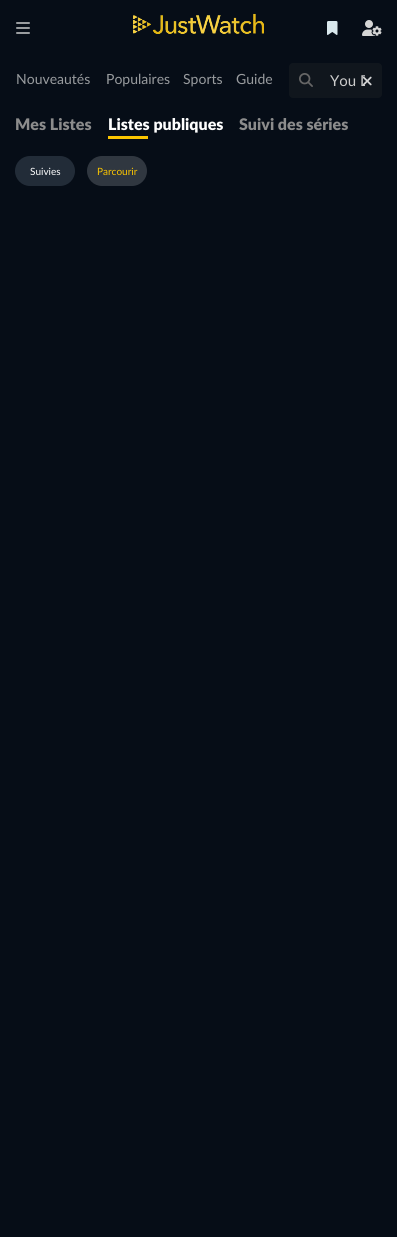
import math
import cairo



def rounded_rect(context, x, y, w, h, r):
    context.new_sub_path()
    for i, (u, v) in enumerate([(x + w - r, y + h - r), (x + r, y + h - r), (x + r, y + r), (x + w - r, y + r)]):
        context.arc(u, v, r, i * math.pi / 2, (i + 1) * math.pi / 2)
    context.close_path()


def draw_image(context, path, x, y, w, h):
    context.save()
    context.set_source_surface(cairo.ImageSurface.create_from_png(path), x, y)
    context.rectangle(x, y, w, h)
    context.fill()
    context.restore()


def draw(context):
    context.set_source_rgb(6 / 255, 13 / 255, 23 / 255)
    context.paint()
    draw_image(context, "images/1.png", 133, 13, 131, 21)
    draw_image(context, "images/2.png", 16, 22, 14, 12)
    draw_image(context, "images/3.png", 362, 20, 20, 16)
    draw_image(context, "images/4.png", 327, 21, 11, 14)
    context.set_source_rgb(16 / 255, 22 / 255, 29 / 255)
    rounded_rect(context, 289, 63, 93, 35, 4)
    context.fill()
    draw_image(context, "images/5.png", 299, 73, 14, 14)
    context.set_source_rgb(251 / 255, 197 / 255, 0)
    context.rectangle(108, 136, 40, 3)
    context.fill()
    context.set_source_rgb(34 / 255, 44 / 255, 56 / 255)
    rounded_rect(context, 15, 156, 60, 30, 15)
    context.fill()
    context.set_source_rgb(48 / 255, 55 / 255, 64 / 255)
    rounded_rect(context, 87, 156, 60, 30, 15)
    context.fill()
    context.select_font_face("Lato")
    context.set_font_size(14)
    context.set_source_rgb(153 / 255, 156 / 255, 159 / 255)
    context.move_to(16, 84)
    context.show_text("Nouveautés")
    context.move_to(106, 84)
    context.show_text("Populaires")
    context.move_to(183, 84)
    context.show_text("Sports")
    context.move_to(236, 84)
    context.show_text("Guide")
    context.save()
    context.rectangle(330, 70, 35, 21)
    context.clip()
    context.set_font_size(15)
    context.set_source_rgb(204 / 255, 204 / 255, 204 / 255)
    context.move_to(330, 86)
    context.show_text("You D")
    context.restore()
    draw_image(context, "images/6.png", 363, 76, 9, 10)
    context.select_font_face("Lato Black")
    context.set_font_size(16)
    context.set_source_rgb(140 / 255, 140 / 255, 140 / 255)
    context.move_to(15, 130)
    context.show_text("Mes Listes")
    context.set_source_rgb(1, 1, 1)
    context.move_to(108, 130)
    context.show_text("Listes publiques")
    context.set_source_rgb(140 / 255, 140 / 255, 140 / 255)
    context.move_to(239, 130)
    context.show_text("Suivi des séries")
    context.select_font_face("Lato")
    context.set_font_size(10)
    context.set_source_rgb(1, 1, 1)
    context.move_to(30, 175)
    context.show_text("Suivies")
    context.set_source_rgb(251 / 255, 197 / 255, 0)
    context.move_to(97, 175)
    context.show_text("Parcourir")


surface = cairo.ImageSurface(cairo.Format.RGB24, 397, 1237)
context = cairo.Context(surface)
options = cairo.FontOptions()
options.set_hint_metrics(cairo.HintMetrics.OFF)
options.set_hint_style(cairo.HintStyle.NONE)
context.set_font_options(options)
context.set_miter_limit(4)
draw(context)
surface.write_to_png("out.png")
